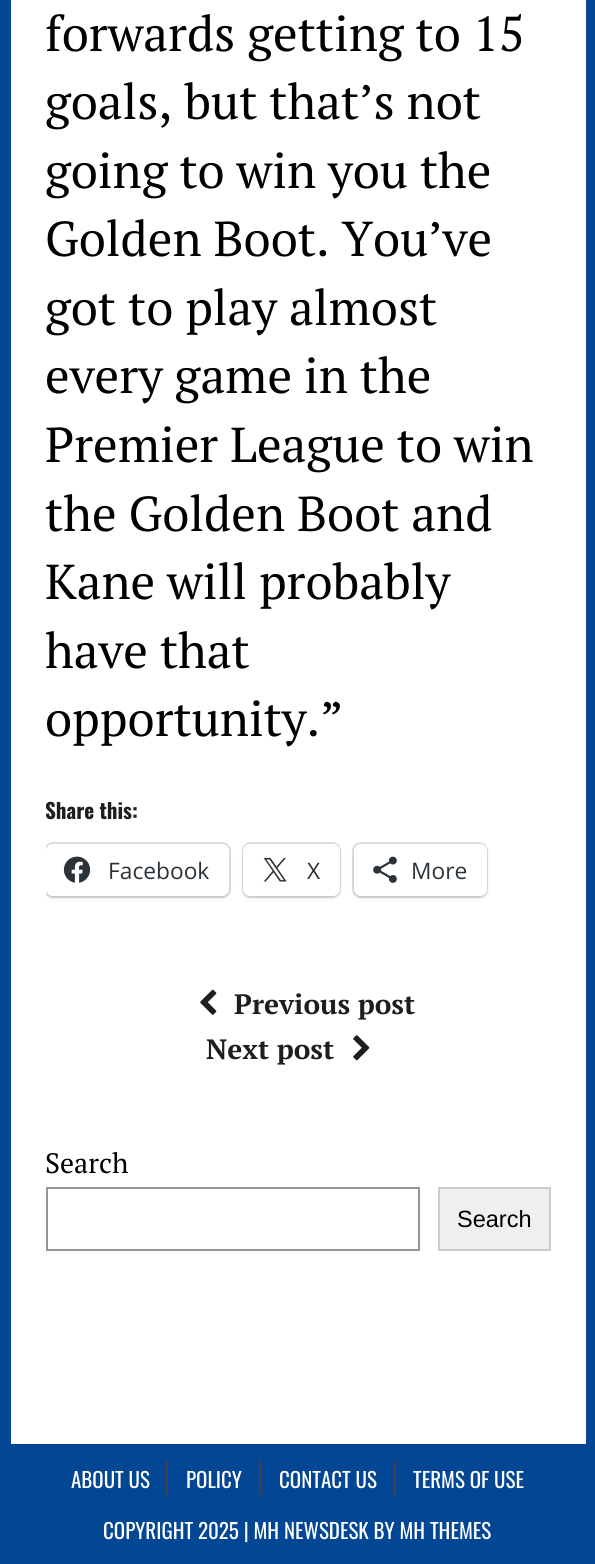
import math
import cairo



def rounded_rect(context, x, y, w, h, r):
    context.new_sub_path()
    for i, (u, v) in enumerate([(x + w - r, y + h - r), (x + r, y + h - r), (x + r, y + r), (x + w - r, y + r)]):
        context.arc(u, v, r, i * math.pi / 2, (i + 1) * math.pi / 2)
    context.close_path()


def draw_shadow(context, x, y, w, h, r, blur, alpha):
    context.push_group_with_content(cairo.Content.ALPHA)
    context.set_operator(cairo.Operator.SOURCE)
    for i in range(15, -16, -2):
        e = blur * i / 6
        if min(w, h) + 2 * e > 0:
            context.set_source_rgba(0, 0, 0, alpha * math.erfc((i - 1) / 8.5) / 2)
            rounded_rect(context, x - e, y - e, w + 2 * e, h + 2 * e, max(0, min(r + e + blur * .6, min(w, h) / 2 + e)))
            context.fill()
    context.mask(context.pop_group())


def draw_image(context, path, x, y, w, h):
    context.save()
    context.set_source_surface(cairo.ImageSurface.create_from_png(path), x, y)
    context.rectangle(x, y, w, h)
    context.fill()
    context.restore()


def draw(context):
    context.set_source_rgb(3 / 255, 70 / 255, 148 / 255)
    context.paint()
    context.set_source_rgb(1, 1, 1)
    context.rectangle(11, 0, 575, 1444)
    context.fill()
    context.save()
    context.rectangle(46, 0, 505, 1143)
    context.clip()
    rounded_rect(context, 45, 843, 185, 54, 8)
    context.set_source_rgb(224 / 255, 224 / 255, 224 / 255)
    context.stroke()
    context.restore()
    context.save()
    context.rectangle(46, 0, 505, 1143)
    context.clip()
    context.set_source_rgb(0, 0, 0)
    draw_shadow(context, 46, 845, 183, 53, 7, 2, 0.12)
    context.restore()
    rounded_rect(context, 46, 844, 183, 52, 7)
    context.fill()
    draw_image(context, "images/1.png", 63, 856, 28, 27)
    rounded_rect(context, 243, 843, 97, 54, 8)
    context.set_source_rgb(224 / 255, 224 / 255, 224 / 255)
    context.stroke()
    context.set_source_rgb(0, 0, 0)
    draw_shadow(context, 243, 845, 97, 53, 7, 2, 0.12)
    context.set_source_rgb(1, 1, 1)
    rounded_rect(context, 243, 844, 97, 52, 7)
    context.fill()
    draw_image(context, "images/2.png", 263, 857, 24, 25)
    rounded_rect(context, 353, 843, 134, 54, 8)
    context.set_source_rgb(224 / 255, 224 / 255, 224 / 255)
    context.stroke()
    context.set_source_rgb(0, 0, 0)
    draw_shadow(context, 354, 845, 133, 53, 7, 2, 0.12)
    context.set_source_rgb(1, 1, 1)
    rounded_rect(context, 354, 844, 133, 52, 7)
    context.fill()
    draw_image(context, "images/3.png", 373, 856, 24, 27)
    draw_image(context, "images/4.png", 200, 989, 17, 26)
    draw_image(context, "images/5.png", 353, 1035, 17, 26)
    context.rectangle(47, 1188, 372, 62)
    context.set_source_rgb(148 / 255, 148 / 255, 148 / 255)
    context.stroke()
    context.set_source_rgb(239 / 255, 239 / 255, 239 / 255)
    context.rectangle(439, 1188, 111, 62)
    context.fill_preserve()
    context.set_source_rgb(204 / 255, 204 / 255, 204 / 255)
    context.stroke()
    context.set_source_rgb(66 / 255, 66 / 255, 66 / 255)
    context.rectangle(166, 1461, 2, 34)
    context.fill()
    context.rectangle(259, 1461, 2, 34)
    context.fill()
    context.rectangle(394, 1461, 2, 34)
    context.fill()
    context.select_font_face("PT Serif")
    context.set_font_size(49)
    context.set_source_rgb(0, 0, 0)
    context.move_to(45, 51)
    context.show_text("forwards getting to 15")
    context.move_to(45, 119)
    context.show_text("goals, but that’s not")
    context.move_to(45, 188)
    context.show_text("going to win you the")
    context.move_to(45, 256)
    context.show_text("Golden Boot. You’ve")
    context.move_to(45, 325)
    context.show_text("got to play almost")
    context.move_to(45, 393)
    context.show_text("every game in the")
    context.move_to(45, 462)
    context.show_text("Premier League to win")
    context.move_to(45, 531)
    context.show_text("the Golden Boot and")
    context.move_to(45, 599)
    context.show_text("Kane will probably")
    context.save()
    context.rectangle(46, 0, 505, 1143)
    context.clip()
    context.move_to(45, 668)
    context.show_text("have that")
    context.restore()
    context.move_to(45, 736)
    context.show_text("opportunity.”")
    context.save()
    context.rectangle(46, 0, 505, 1143)
    context.clip()
    context.select_font_face("Oswald", cairo.FontSlant.NORMAL, cairo.FontWeight.BOLD)
    context.set_font_size(21)
    context.set_source_rgb(31 / 255, 30 / 255, 30 / 255)
    context.move_to(45, 819)
    context.show_text("Share this:")
    context.restore()
    context.select_font_face("Open Sans")
    context.set_font_size(22.75)
    context.set_source_rgb(44 / 255, 51 / 255, 56 / 255)
    context.move_to(108, 879)
    context.show_text("Facebook")
    context.move_to(307, 879)
    context.show_text("X")
    context.move_to(411, 879)
    context.show_text("More")
    context.select_font_face("PT Serif", cairo.FontSlant.NORMAL, cairo.FontWeight.BOLD)
    context.set_font_size(28)
    context.set_source_rgb(31 / 255, 30 / 255, 30 / 255)
    context.move_to(234, 1014)
    context.show_text("Previous post")
    context.move_to(206, 1059)
    context.show_text("Next post")
    context.select_font_face("PT Serif")
    context.set_source_rgb(0, 0, 0)
    context.move_to(45, 1173)
    context.show_text("Search")
    context.select_font_face("Liberation Sans")
    context.set_font_size(23.5)
    context.move_to(457, 1227)
    context.show_text("Search")
    context.select_font_face("Oswald")
    context.set_font_size(21)
    context.set_source_rgb(1, 1, 1)
    context.move_to(71, 1488)
    context.show_text("ABOUT US")
    context.move_to(186, 1488)
    context.show_text("POLICY")
    context.move_to(279, 1488)
    context.show_text("CONTACT US")
    context.move_to(413, 1488)
    context.show_text("TERMS OF USE")
    context.move_to(103, 1539)
    context.show_text("COPYRIGHT 2025 | MH NEWSDESK BY MH THEMES")


surface = cairo.ImageSurface(cairo.Format.RGB24, 595, 1564)
context = cairo.Context(surface)
options = cairo.FontOptions()
options.set_hint_metrics(cairo.HintMetrics.OFF)
options.set_hint_style(cairo.HintStyle.NONE)
context.set_font_options(options)
context.set_miter_limit(4)
draw(context)
surface.write_to_png("out.png")
